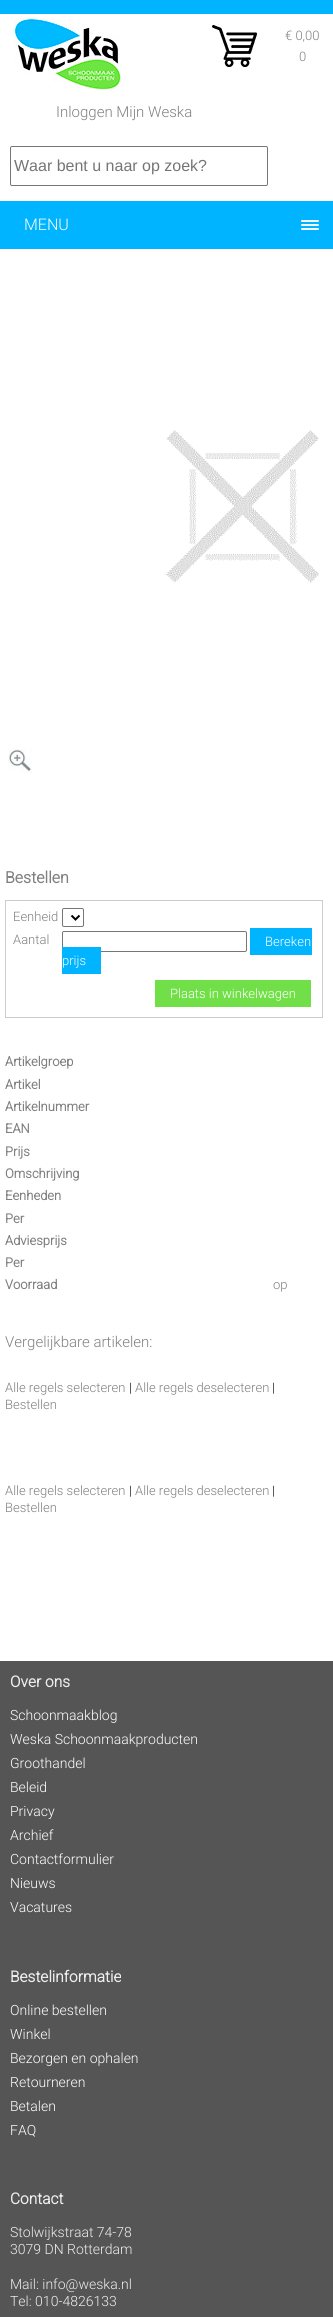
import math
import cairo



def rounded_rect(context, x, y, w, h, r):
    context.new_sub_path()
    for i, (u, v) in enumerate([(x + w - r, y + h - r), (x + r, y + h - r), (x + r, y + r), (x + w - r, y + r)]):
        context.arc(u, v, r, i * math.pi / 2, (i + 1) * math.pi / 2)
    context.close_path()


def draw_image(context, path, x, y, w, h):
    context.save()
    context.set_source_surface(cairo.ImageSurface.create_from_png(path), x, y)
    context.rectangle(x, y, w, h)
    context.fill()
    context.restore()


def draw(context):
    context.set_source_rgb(1, 1, 1)
    context.paint()
    context.set_source_rgb(0, 180 / 255, 1)
    context.rectangle(0, 0, 333, 14)
    context.fill()
    draw_image(context, "images/1.png", 14, 18, 108, 72)
    draw_image(context, "images/2.png", 212, 25, 45, 42)
    rounded_rect(context, 10.5, 146.5, 257, 39, 1.5)
    context.set_source_rgb(118 / 255, 118 / 255, 118 / 255)
    context.set_line_width(1)
    context.stroke()
    context.set_source_rgb(0, 180 / 255, 1)
    context.rectangle(0, 201, 333, 48)
    context.fill()
    context.set_source_rgb(245 / 255, 245 / 255, 245 / 255)
    rounded_rect(context, 301, 220, 18, 2, 1)
    context.fill()
    rounded_rect(context, 301, 224, 18, 2, 1)
    context.fill()
    rounded_rect(context, 301, 228, 18, 2, 1)
    context.fill()
    draw_image(context, "images/3.png", 165, 430, 154, 153)
    draw_image(context, "images/4.png", 8, 749, 24, 24)
    context.rectangle(5.5, 900.5, 317, 117)
    context.set_source_rgb(204 / 255, 204 / 255, 204 / 255)
    context.stroke()
    rounded_rect(context, 62.5, 908.5, 21, 18, 1.5)
    context.set_source_rgb(118 / 255, 118 / 255, 118 / 255)
    context.stroke()
    context.new_path()
    context.move_to(71.5, 915.5)
    context.line_to(75.5, 919.5)
    context.line_to(79.5, 915.5)
    context.set_source_rgb(0, 0, 0)
    context.set_line_width(2)
    context.stroke()
    rounded_rect(context, 62.5, 931.5, 184, 20, 1.5)
    context.set_source_rgb(118 / 255, 118 / 255, 118 / 255)
    context.set_line_width(1)
    context.stroke()
    context.set_source_rgb(0, 180 / 255, 1)
    context.rectangle(250, 928, 62, 27)
    context.fill()
    context.rectangle(62, 947, 39, 27)
    context.fill()
    context.set_source_rgb(113 / 255, 224 / 255, 72 / 255)
    context.rectangle(155, 980, 156, 27)
    context.fill()
    context.set_source_rgb(85 / 255, 85 / 255, 85 / 255)
    context.rectangle(0, 1661, 333, 656)
    context.fill()
    context.select_font_face("Roboto Light")
    context.set_font_size(13)
    context.set_source_rgb(128 / 255, 128 / 255, 128 / 255)
    context.move_to(285, 40)
    context.show_text("€ 0,00")
    context.move_to(299, 61)
    context.show_text("0")
    context.set_font_size(15)
    context.move_to(56, 117)
    context.show_text("Inloggen Mijn Weska")
    context.select_font_face("Liberation Sans")
    context.set_font_size(16)
    context.set_source_rgb(117 / 255, 117 / 255, 117 / 255)
    context.move_to(14, 171)
    context.show_text("Waar bent u naar op zoek?")
    context.select_font_face("Roboto Light")
    context.set_source_rgb(1, 1, 1)
    context.move_to(24, 230)
    context.show_text("MENU")
    context.select_font_face("Roboto", cairo.FontSlant.NORMAL, cairo.FontWeight.BOLD)
    context.set_source_rgb(128 / 255, 128 / 255, 128 / 255)
    context.move_to(5, 883)
    context.show_text("Bestellen")
    context.select_font_face("Roboto Light")
    context.set_font_size(13)
    context.move_to(13, 921)
    context.show_text("Eenheid")
    context.move_to(13, 944)
    context.show_text("Aantal")
    context.set_source_rgb(1, 1, 1)
    context.move_to(265, 946)
    context.show_text("Bereken")
    context.move_to(62, 965)
    context.show_text("prijs")
    context.move_to(170, 998)
    context.show_text("Plaats in winkelwagen")
    context.select_font_face("Roboto", cairo.FontSlant.NORMAL, cairo.FontWeight.BOLD)
    context.set_source_rgb(128 / 255, 128 / 255, 128 / 255)
    context.move_to(5, 1066)
    context.show_text("Artikelgroep")
    context.move_to(5, 1089)
    context.show_text("Artikel")
    context.move_to(5, 1111)
    context.show_text("Artikelnummer")
    context.move_to(5, 1133)
    context.show_text("EAN")
    context.move_to(5, 1156)
    context.show_text("Prijs")
    context.move_to(5, 1178)
    context.show_text("Omschrijving")
    context.move_to(5, 1200)
    context.show_text("Eenheden")
    context.move_to(5, 1223)
    context.show_text("Per")
    context.move_to(5, 1245)
    context.show_text("Adviesprijs")
    context.move_to(5, 1267)
    context.show_text("Per")
    context.move_to(5, 1289)
    context.show_text("Voorraad")
    context.select_font_face("Roboto Light")
    context.move_to(273, 1289)
    context.show_text("op")
    context.set_font_size(15)
    context.move_to(5, 1347)
    context.show_text("Vergelijkbare artikelen:")
    context.set_font_size(13)
    context.move_to(5, 1392)
    context.show_text("Alle regels selecteren")
    context.set_source_rgb(0, 0, 0)
    context.move_to(129, 1392)
    context.show_text("|")
    context.set_source_rgb(128 / 255, 128 / 255, 128 / 255)
    context.move_to(135, 1392)
    context.show_text("Alle regels deselecteren")
    context.set_source_rgb(0, 0, 0)
    context.move_to(272, 1392)
    context.show_text("|")
    context.set_source_rgb(128 / 255, 128 / 255, 128 / 255)
    context.move_to(5, 1409)
    context.show_text("Bestellen")
    context.move_to(5, 1495)
    context.show_text("Alle regels selecteren")
    context.set_source_rgb(0, 0, 0)
    context.move_to(129, 1495)
    context.show_text("|")
    context.set_source_rgb(128 / 255, 128 / 255, 128 / 255)
    context.move_to(135, 1495)
    context.show_text("Alle regels deselecteren")
    context.set_source_rgb(0, 0, 0)
    context.move_to(272, 1495)
    context.show_text("|")
    context.set_source_rgb(128 / 255, 128 / 255, 128 / 255)
    context.move_to(5, 1512)
    context.show_text("Bestellen")
    context.select_font_face("Roboto", cairo.FontSlant.NORMAL, cairo.FontWeight.BOLD)
    context.set_font_size(15.5)
    context.set_source_rgb(238 / 255, 238 / 255, 238 / 255)
    context.move_to(10, 1687)
    context.show_text("Over ons")
    context.select_font_face("Roboto Light")
    context.set_font_size(14)
    context.set_source_rgb(1, 1, 1)
    context.move_to(10, 1720)
    context.show_text("Schoonmaakblog")
    context.move_to(10, 1744)
    context.show_text("Weska Schoonmaakproducten")
    context.move_to(10, 1768)
    context.show_text("Groothandel")
    context.move_to(10, 1792)
    context.show_text("Beleid")
    context.move_to(10, 1816)
    context.show_text("Privacy")
    context.move_to(10, 1840)
    context.show_text("Archief")
    context.move_to(10, 1864)
    context.show_text("Contactformulier")
    context.move_to(10, 1888)
    context.show_text("Nieuws")
    context.move_to(10, 1912)
    context.show_text("Vacatures")
    context.select_font_face("Roboto", cairo.FontSlant.NORMAL, cairo.FontWeight.BOLD)
    context.set_font_size(15.5)
    context.set_source_rgb(238 / 255, 238 / 255, 238 / 255)
    context.move_to(10, 1982)
    context.show_text("Bestelinformatie")
    context.select_font_face("Roboto Light")
    context.set_font_size(14)
    context.set_source_rgb(1, 1, 1)
    context.move_to(10, 2015)
    context.show_text("Online bestellen")
    context.move_to(10, 2039)
    context.show_text("Winkel")
    context.move_to(10, 2063)
    context.show_text("Bezorgen en ophalen")
    context.move_to(10, 2087)
    context.show_text("Retourneren")
    context.move_to(10, 2111)
    context.show_text("Betalen")
    context.move_to(10, 2135)
    context.show_text("FAQ")
    context.select_font_face("Roboto", cairo.FontSlant.NORMAL, cairo.FontWeight.BOLD)
    context.set_font_size(15.5)
    context.set_source_rgb(238 / 255, 238 / 255, 238 / 255)
    context.move_to(10, 2204)
    context.show_text("Contact")
    context.select_font_face("Roboto Light")
    context.set_font_size(14)
    context.move_to(10, 2237)
    context.show_text("Stolwijkstraat 74-78")
    context.move_to(10, 2254)
    context.show_text("3079 DN Rotterdam")
    context.move_to(10, 2289)
    context.show_text("Mail: info@weska.nl")
    context.move_to(10, 2306)
    context.show_text("Tel: 010-4826133")


surface = cairo.ImageSurface(cairo.Format.RGB24, 333, 2317)
context = cairo.Context(surface)
options = cairo.FontOptions()
options.set_hint_metrics(cairo.HintMetrics.OFF)
options.set_hint_style(cairo.HintStyle.NONE)
context.set_font_options(options)
context.set_miter_limit(4)
draw(context)
surface.write_to_png("out.png")
